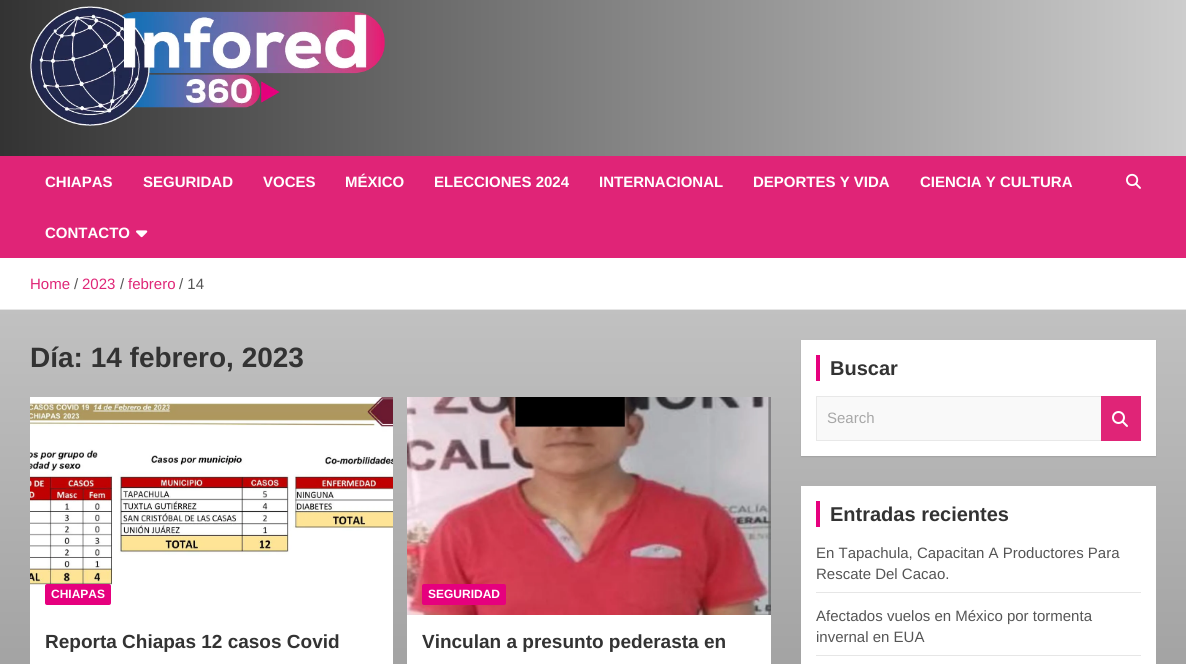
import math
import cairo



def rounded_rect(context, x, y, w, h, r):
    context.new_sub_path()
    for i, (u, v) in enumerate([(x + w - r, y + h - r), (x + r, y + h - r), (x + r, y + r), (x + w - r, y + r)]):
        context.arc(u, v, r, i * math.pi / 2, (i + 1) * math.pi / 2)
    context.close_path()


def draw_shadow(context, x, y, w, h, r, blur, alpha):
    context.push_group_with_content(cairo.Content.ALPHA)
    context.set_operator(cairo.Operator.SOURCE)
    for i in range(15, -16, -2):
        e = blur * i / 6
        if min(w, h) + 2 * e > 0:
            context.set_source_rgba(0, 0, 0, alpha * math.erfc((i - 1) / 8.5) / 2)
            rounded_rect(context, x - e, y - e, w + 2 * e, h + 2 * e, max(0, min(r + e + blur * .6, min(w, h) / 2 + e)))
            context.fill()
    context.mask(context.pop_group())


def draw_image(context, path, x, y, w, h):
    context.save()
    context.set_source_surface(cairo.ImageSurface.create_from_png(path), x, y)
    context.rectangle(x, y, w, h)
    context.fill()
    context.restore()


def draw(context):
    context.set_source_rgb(1, 1, 1)
    context.paint()
    gradient = cairo.LinearGradient(593, -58, 593, 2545)
    gradient.add_color_stop_rgba(0.04, 215 / 255, 215 / 255, 215 / 255, 1)
    gradient.add_color_stop_rgba(0.64, 84 / 255, 84 / 255, 84 / 255, 1)
    context.set_source(gradient)
    context.rectangle(0, 310, 1186, 354)
    context.fill()
    gradient = cairo.LinearGradient(0, 66, 1186, 66)
    gradient.add_color_stop_rgba(0, 51 / 255, 51 / 255, 51 / 255, 1)
    gradient.add_color_stop_rgba(1, 205 / 255, 205 / 255, 205 / 255, 1)
    context.set_source(gradient)
    context.rectangle(0, 0, 1186, 156)
    context.fill()
    draw_image(context, "images/1.png", 30, 6, 355, 120)
    context.set_source_rgb(224 / 255, 36 / 255, 119 / 255)
    context.rectangle(0, 156, 1186, 102)
    context.fill()
    draw_image(context, "images/2.png", 136, 230, 12, 8)
    draw_image(context, "images/3.png", 1126, 173, 15, 16)
    context.set_source_rgb(230 / 255, 230 / 255, 230 / 255)
    context.rectangle(0, 309, 1186, 1)
    context.fill()
    context.set_source_rgb(1, 1, 1)
    context.rectangle(30, 615, 363, 49)
    context.fill()
    draw_image(context, "images/4.png", 30, 397, 363, 218)
    context.set_source_rgb(230 / 255, 0, 126 / 255)
    rounded_rect(context, 45, 584, 66, 21, 2)
    context.fill()
    context.set_source_rgb(1, 1, 1)
    context.rectangle(407, 615, 364, 49)
    context.fill()
    draw_image(context, "images/5.png", 407, 397, 364, 218)
    context.set_source_rgb(230 / 255, 0, 126 / 255)
    rounded_rect(context, 422, 584, 84, 21, 2)
    context.fill()
    context.set_source_rgb(0, 0, 0)
    draw_shadow(context, 801, 341, 355, 116, 0, 0.5, 0.1)
    context.set_source_rgb(1, 1, 1)
    context.rectangle(801, 340, 355, 116)
    context.fill()
    context.set_source_rgb(230 / 255, 0, 126 / 255)
    context.rectangle(816, 355, 4, 26)
    context.fill()
    context.set_source_rgb(249 / 255, 249 / 255, 249 / 255)
    context.rectangle(817, 397, 284, 43)
    context.fill()
    context.set_source_rgb(232 / 255, 232 / 255, 232 / 255)
    context.new_path()
    context.move_to(816, 396)
    context.line_to(1101, 396)
    context.line_to(1101, 397)
    context.line_to(817, 397)
    context.close_path()
    context.fill()
    context.new_path()
    context.move_to(1101, 441)
    context.line_to(816, 441)
    context.line_to(817, 440)
    context.line_to(1101, 440)
    context.close_path()
    context.fill()
    context.set_source_rgba(0, 0, 0, 0.09)
    context.new_path()
    context.move_to(816, 441)
    context.line_to(816, 396)
    context.line_to(817, 397)
    context.line_to(817, 440)
    context.close_path()
    context.fill()
    context.set_source_rgb(224 / 255, 36 / 255, 119 / 255)
    context.rectangle(1101, 396, 40, 45)
    context.fill()
    draw_image(context, "images/6.png", 1112, 411, 16, 16)
    context.set_source_rgb(1, 1, 1)
    context.rectangle(801, 486, 355, 178)
    context.fill()
    context.set_source_rgb(230 / 255, 0, 126 / 255)
    context.rectangle(816, 501, 4, 26)
    context.fill()
    context.set_source_rgb(230 / 255, 230 / 255, 230 / 255)
    context.rectangle(816, 592, 325, 1)
    context.fill()
    context.rectangle(816, 655, 325, 1)
    context.fill()
    context.select_font_face("Liberation Sans", cairo.FontSlant.NORMAL, cairo.FontWeight.BOLD)
    context.set_font_size(15)
    context.set_source_rgb(1, 1, 1)
    context.move_to(45, 187)
    context.show_text("CHIAPAS")
    context.move_to(143, 187)
    context.show_text("SEGURIDAD")
    context.move_to(263, 187)
    context.show_text("VOCES")
    context.move_to(345, 187)
    context.show_text("MÉXICO")
    context.move_to(434, 187)
    context.show_text("ELECCIONES 2024")
    context.move_to(599, 187)
    context.show_text("INTERNACIONAL")
    context.move_to(753, 187)
    context.show_text("DEPORTES Y VIDA")
    context.move_to(920, 187)
    context.show_text("CIENCIA Y CULTURA")
    context.move_to(45, 238)
    context.show_text("CONTACTO")
    context.select_font_face("Liberation Sans")
    context.set_source_rgb(223 / 255, 38 / 255, 119 / 255)
    context.move_to(30, 289)
    context.show_text("Home")
    context.set_source_rgb(85 / 255, 85 / 255, 85 / 255)
    context.move_to(74, 289)
    context.show_text("/")
    context.set_source_rgb(223 / 255, 38 / 255, 119 / 255)
    context.move_to(82, 289)
    context.show_text("2023")
    context.set_source_rgb(85 / 255, 85 / 255, 85 / 255)
    context.move_to(120, 289)
    context.show_text("/")
    context.set_source_rgb(223 / 255, 38 / 255, 119 / 255)
    context.move_to(128, 289)
    context.show_text("febrero")
    context.set_source_rgb(85 / 255, 85 / 255, 85 / 255)
    context.move_to(179, 289)
    context.show_text("/ 14")
    context.select_font_face("Liberation Sans", cairo.FontSlant.NORMAL, cairo.FontWeight.BOLD)
    context.set_font_size(28)
    context.set_source_rgb(51 / 255, 51 / 255, 51 / 255)
    context.move_to(30, 367)
    context.show_text("Día: 14 febrero, 2023")
    context.set_font_size(12)
    context.set_source_rgb(1, 1, 1)
    context.move_to(51, 598)
    context.show_text("CHIAPAS")
    context.set_font_size(19)
    context.set_source_rgb(51 / 255, 51 / 255, 51 / 255)
    context.move_to(45, 648)
    context.show_text("Reporta Chiapas 12 casos Covid")
    context.set_font_size(12)
    context.set_source_rgb(1, 1, 1)
    context.move_to(428, 598)
    context.show_text("SEGURIDAD")
    context.set_font_size(19)
    context.set_source_rgb(51 / 255, 51 / 255, 51 / 255)
    context.move_to(422, 648)
    context.show_text("Vinculan a presunto pederasta en")
    context.set_font_size(20)
    context.move_to(830, 375)
    context.show_text("Buscar")
    context.select_font_face("Liberation Sans")
    context.set_font_size(15)
    context.set_source_rgb(167 / 255, 167 / 255, 167 / 255)
    context.move_to(827, 423)
    context.show_text("Search")
    context.select_font_face("Liberation Sans", cairo.FontSlant.NORMAL, cairo.FontWeight.BOLD)
    context.set_font_size(20)
    context.set_source_rgb(51 / 255, 51 / 255, 51 / 255)
    context.move_to(830, 521)
    context.show_text("Entradas recientes")
    context.select_font_face("Liberation Sans")
    context.set_font_size(15)
    context.set_source_rgb(85 / 255, 85 / 255, 85 / 255)
    context.move_to(816, 558)
    context.show_text("En Tapachula, Capacitan A Productores Para")
    context.move_to(816, 579)
    context.show_text("Rescate Del Cacao.")
    context.move_to(816, 621)
    context.show_text("Afectados vuelos en México por tormenta")
    context.move_to(816, 642)
    context.show_text("invernal en EUA")


surface = cairo.ImageSurface(cairo.Format.RGB24, 1186, 664)
context = cairo.Context(surface)
options = cairo.FontOptions()
options.set_hint_metrics(cairo.HintMetrics.OFF)
options.set_hint_style(cairo.HintStyle.NONE)
context.set_font_options(options)
context.set_miter_limit(4)
draw(context)
surface.write_to_png("out.png")
